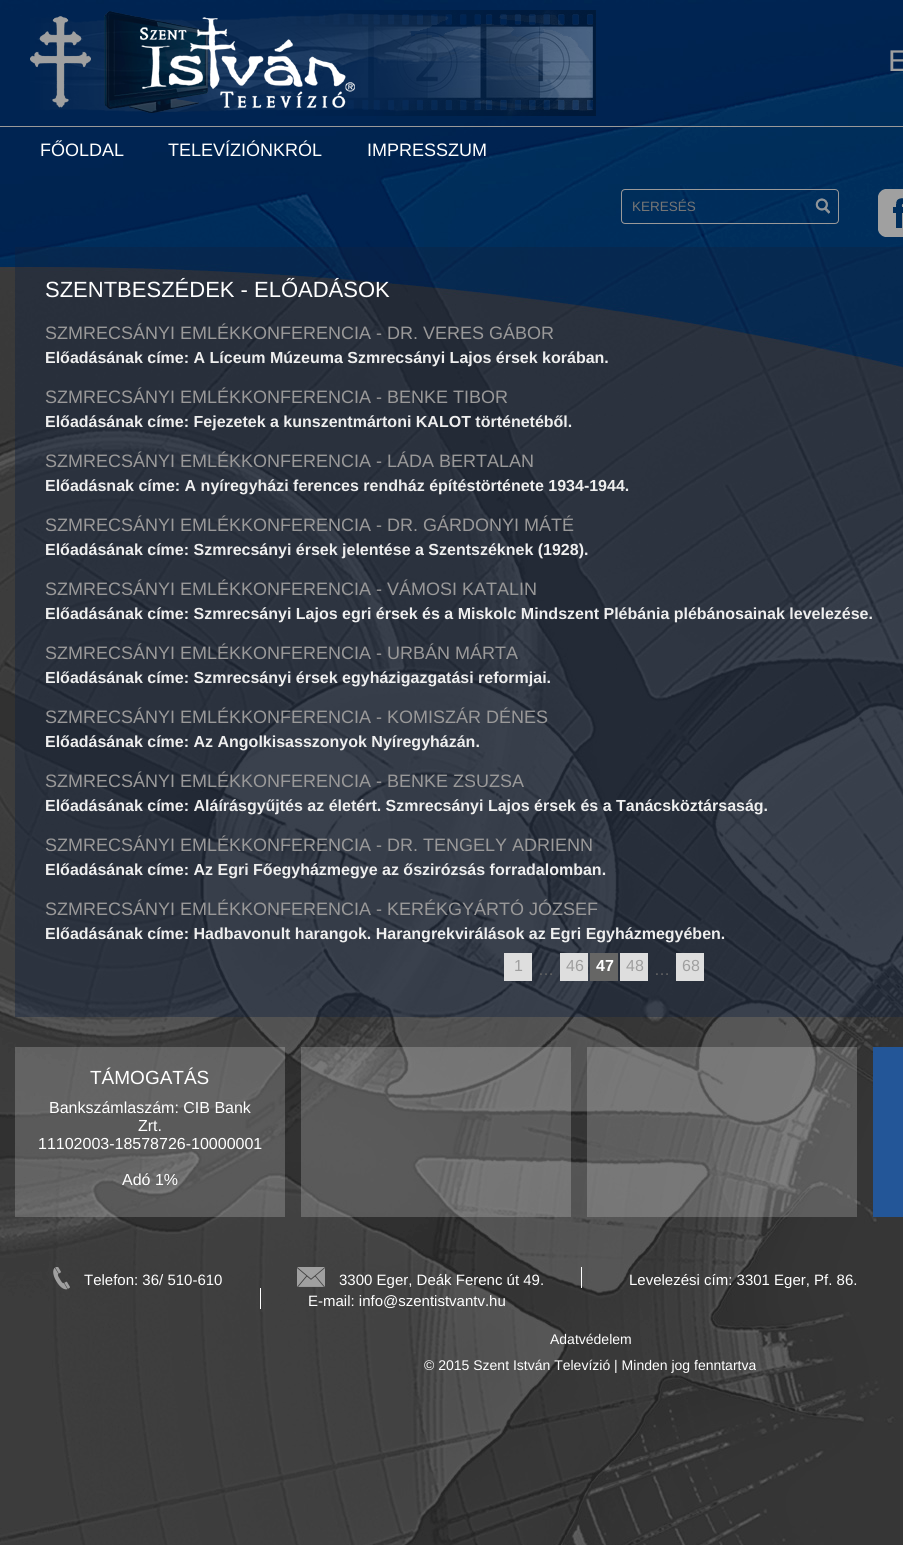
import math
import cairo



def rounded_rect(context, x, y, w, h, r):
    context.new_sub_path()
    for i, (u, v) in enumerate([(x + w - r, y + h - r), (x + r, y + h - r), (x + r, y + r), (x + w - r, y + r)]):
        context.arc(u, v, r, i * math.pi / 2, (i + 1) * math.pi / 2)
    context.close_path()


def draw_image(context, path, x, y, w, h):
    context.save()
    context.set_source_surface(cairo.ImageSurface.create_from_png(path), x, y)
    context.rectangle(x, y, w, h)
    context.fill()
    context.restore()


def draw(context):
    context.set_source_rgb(1, 1, 1)
    context.paint()
    draw_image(context, "images/1.png", 0, 0, 903, 1545)
    draw_image(context, "images/2.png", 30, 10, 566, 106)
    context.set_source_rgb(154 / 255, 153 / 255, 153 / 255)
    context.rectangle(0, 126, 903, 1)
    context.fill()
    rounded_rect(context, 621.5, 189.5, 217, 34, 3.5)
    context.set_line_width(1)
    context.stroke()
    draw_image(context, "images/3.png", 815, 198, 15, 16)
    draw_image(context, "images/4.png", 878, 189, 25, 48)
    context.set_source_rgba(16 / 255, 33 / 255, 64 / 255, 0.4)
    context.rectangle(15, 247, 888, 770)
    context.fill()
    context.set_source_rgb(222 / 255, 222 / 255, 222 / 255)
    context.rectangle(504, 953, 28, 28)
    context.fill()
    context.rectangle(560, 953, 28, 28)
    context.fill()
    context.set_source_rgb(102 / 255, 102 / 255, 101 / 255)
    context.rectangle(590, 953, 28, 28)
    context.fill()
    context.set_source_rgb(222 / 255, 222 / 255, 222 / 255)
    context.rectangle(620, 953, 28, 28)
    context.fill()
    context.rectangle(676, 953, 28, 28)
    context.fill()
    context.set_source_rgba(1, 1, 1, 0.2)
    context.rectangle(15, 1047, 270, 170)
    context.fill()
    context.rectangle(301, 1047, 270, 170)
    context.fill()
    context.rectangle(587, 1047, 270, 170)
    context.fill()
    context.set_source_rgb(35 / 255, 86 / 255, 152 / 255)
    context.rectangle(873, 1047, 30, 170)
    context.fill()
    draw_image(context, "images/5.png", 53, 1267, 17, 23)
    draw_image(context, "images/6.png", 297, 1267, 28, 20)
    context.set_source_rgb(1, 1, 1)
    context.rectangle(581, 1267, 1, 21)
    context.fill()
    context.rectangle(260, 1288, 1, 21)
    context.fill()
    context.select_font_face("Liberation Sans")
    context.set_font_size(30)
    context.set_source_rgb(159 / 255, 159 / 255, 159 / 255)
    context.move_to(888, 71)
    context.show_text("E")
    context.set_font_size(18)
    context.set_source_rgb(1, 1, 1)
    context.move_to(40, 156)
    context.show_text("FŐOLDAL")
    context.move_to(168, 156)
    context.show_text("TELEVÍZIÓNKRÓL")
    context.move_to(367, 156)
    context.show_text("IMPRESSZUM")
    context.set_font_size(13.5)
    context.set_source_rgb(117 / 255, 117 / 255, 117 / 255)
    context.move_to(632, 211)
    context.show_text("KERESÉS")
    context.set_font_size(22)
    context.set_source_rgb(1, 1, 1)
    context.move_to(45, 297)
    context.show_text("SZENTBESZÉDEK - ELŐADÁSOK")
    context.set_font_size(18)
    context.set_source_rgb(154 / 255, 153 / 255, 153 / 255)
    context.move_to(45, 339)
    context.show_text("SZMRECSÁNYI EMLÉKKONFERENCIA - DR. VERES GÁBOR")
    context.select_font_face("Liberation Sans", cairo.FontSlant.NORMAL, cairo.FontWeight.BOLD)
    context.set_font_size(16)
    context.set_source_rgb(238 / 255, 238 / 255, 238 / 255)
    context.move_to(45, 363)
    context.show_text("Előadásának címe: A Líceum Múzeuma Szmrecsányi Lajos érsek korában.")
    context.select_font_face("Liberation Sans")
    context.set_font_size(18)
    context.set_source_rgb(154 / 255, 153 / 255, 153 / 255)
    context.move_to(45, 403)
    context.show_text("SZMRECSÁNYI EMLÉKKONFERENCIA - BENKE TIBOR")
    context.select_font_face("Liberation Sans", cairo.FontSlant.NORMAL, cairo.FontWeight.BOLD)
    context.set_font_size(16)
    context.set_source_rgb(238 / 255, 238 / 255, 238 / 255)
    context.move_to(45, 427)
    context.show_text("Előadásának címe: Fejezetek a kunszentmártoni KALOT történetéből.")
    context.select_font_face("Liberation Sans")
    context.set_font_size(18)
    context.set_source_rgb(154 / 255, 153 / 255, 153 / 255)
    context.move_to(45, 467)
    context.show_text("SZMRECSÁNYI EMLÉKKONFERENCIA - LÁDA BERTALAN")
    context.select_font_face("Liberation Sans", cairo.FontSlant.NORMAL, cairo.FontWeight.BOLD)
    context.set_font_size(16)
    context.set_source_rgb(238 / 255, 238 / 255, 238 / 255)
    context.move_to(45, 491)
    context.show_text("Előadásnak címe: A nyíregyházi ferences rendház építéstörténete 1934-1944.")
    context.select_font_face("Liberation Sans")
    context.set_font_size(18)
    context.set_source_rgb(154 / 255, 153 / 255, 153 / 255)
    context.move_to(45, 531)
    context.show_text("SZMRECSÁNYI EMLÉKKONFERENCIA - DR. GÁRDONYI MÁTÉ")
    context.select_font_face("Liberation Sans", cairo.FontSlant.NORMAL, cairo.FontWeight.BOLD)
    context.set_font_size(16)
    context.set_source_rgb(238 / 255, 238 / 255, 238 / 255)
    context.move_to(45, 555)
    context.show_text("Előadásának címe: Szmrecsányi érsek jelentése a Szentszéknek (1928).")
    context.select_font_face("Liberation Sans")
    context.set_font_size(18)
    context.set_source_rgb(154 / 255, 153 / 255, 153 / 255)
    context.move_to(45, 595)
    context.show_text("SZMRECSÁNYI EMLÉKKONFERENCIA - VÁMOSI KATALIN")
    context.select_font_face("Liberation Sans", cairo.FontSlant.NORMAL, cairo.FontWeight.BOLD)
    context.set_font_size(16)
    context.set_source_rgb(238 / 255, 238 / 255, 238 / 255)
    context.move_to(45, 619)
    context.show_text("Előadásának címe: Szmrecsányi Lajos egri érsek és a Miskolc Mindszent Plébánia plébánosainak levelezése.")
    context.select_font_face("Liberation Sans")
    context.set_font_size(18)
    context.set_source_rgb(154 / 255, 153 / 255, 153 / 255)
    context.move_to(45, 659)
    context.show_text("SZMRECSÁNYI EMLÉKKONFERENCIA - URBÁN MÁRTA")
    context.select_font_face("Liberation Sans", cairo.FontSlant.NORMAL, cairo.FontWeight.BOLD)
    context.set_font_size(16)
    context.set_source_rgb(238 / 255, 238 / 255, 238 / 255)
    context.move_to(45, 683)
    context.show_text("Előadásának címe: Szmrecsányi érsek egyházigazgatási reformjai.")
    context.select_font_face("Liberation Sans")
    context.set_font_size(18)
    context.set_source_rgb(154 / 255, 153 / 255, 153 / 255)
    context.move_to(45, 723)
    context.show_text("SZMRECSÁNYI EMLÉKKONFERENCIA - KOMISZÁR DÉNES")
    context.select_font_face("Liberation Sans", cairo.FontSlant.NORMAL, cairo.FontWeight.BOLD)
    context.set_font_size(16)
    context.set_source_rgb(238 / 255, 238 / 255, 238 / 255)
    context.move_to(45, 747)
    context.show_text("Előadásának címe: Az Angolkisasszonyok Nyíregyházán.")
    context.select_font_face("Liberation Sans")
    context.set_font_size(18)
    context.set_source_rgb(154 / 255, 153 / 255, 153 / 255)
    context.move_to(45, 787)
    context.show_text("SZMRECSÁNYI EMLÉKKONFERENCIA - BENKE ZSUZSA")
    context.select_font_face("Liberation Sans", cairo.FontSlant.NORMAL, cairo.FontWeight.BOLD)
    context.set_font_size(16)
    context.set_source_rgb(238 / 255, 238 / 255, 238 / 255)
    context.move_to(45, 811)
    context.show_text("Előadásának címe: Aláírásgyűjtés az életért. Szmrecsányi Lajos érsek és a Tanácsköztársaság.")
    context.select_font_face("Liberation Sans")
    context.set_font_size(18)
    context.set_source_rgb(154 / 255, 153 / 255, 153 / 255)
    context.move_to(45, 851)
    context.show_text("SZMRECSÁNYI EMLÉKKONFERENCIA - DR. TENGELY ADRIENN")
    context.select_font_face("Liberation Sans", cairo.FontSlant.NORMAL, cairo.FontWeight.BOLD)
    context.set_font_size(16)
    context.set_source_rgb(238 / 255, 238 / 255, 238 / 255)
    context.move_to(45, 875)
    context.show_text("Előadásának címe: Az Egri Főegyházmegye az őszirózsás forradalomban.")
    context.select_font_face("Liberation Sans")
    context.set_font_size(18)
    context.set_source_rgb(154 / 255, 153 / 255, 153 / 255)
    context.move_to(45, 915)
    context.show_text("SZMRECSÁNYI EMLÉKKONFERENCIA - KERÉKGYÁRTÓ JÓZSEF")
    context.select_font_face("Liberation Sans", cairo.FontSlant.NORMAL, cairo.FontWeight.BOLD)
    context.set_font_size(16)
    context.set_source_rgb(238 / 255, 238 / 255, 238 / 255)
    context.move_to(45, 939)
    context.show_text("Előadásának címe: Hadbavonult harangok. Harangrekvirálások az Egri Egyházmegyében.")
    context.select_font_face("Liberation Sans")
    context.set_source_rgb(159 / 255, 159 / 255, 159 / 255)
    context.move_to(514, 971)
    context.show_text("1")
    context.move_to(566, 971)
    context.show_text("46")
    context.select_font_face("Liberation Sans", cairo.FontSlant.NORMAL, cairo.FontWeight.BOLD)
    context.set_source_rgb(1, 1, 1)
    context.move_to(596, 971)
    context.show_text("47")
    context.select_font_face("Liberation Sans")
    context.set_source_rgb(159 / 255, 159 / 255, 159 / 255)
    context.move_to(626, 971)
    context.show_text("48")
    context.move_to(682, 971)
    context.show_text("68")
    context.set_source_rgb(102 / 255, 102 / 255, 102 / 255)
    context.move_to(538, 975)
    context.show_text("…")
    context.move_to(654, 975)
    context.show_text("…")
    context.set_font_size(19)
    context.set_source_rgb(1, 1, 1)
    context.move_to(90, 1084)
    context.show_text("TÁMOGATÁS")
    context.set_font_size(16)
    context.move_to(49, 1113)
    context.show_text("Bankszámlaszám: CIB Bank")
    context.move_to(138, 1131)
    context.show_text("Zrt.")
    context.move_to(38, 1149)
    context.show_text("11102003-18578726-10000001")
    context.move_to(122, 1185)
    context.show_text("Adó 1%")
    context.set_font_size(15)
    context.move_to(84, 1285)
    context.show_text("Telefon: 36/ 510-610")
    context.move_to(339, 1285)
    context.show_text("3300 Eger, Deák Ferenc út 49.")
    context.move_to(629, 1285)
    context.show_text("Levelezési cím: 3301 Eger, Pf. 86.")
    context.move_to(308, 1306)
    context.show_text("E-mail: info@szentistvantv.hu")
    context.set_font_size(14)
    context.move_to(550, 1344)
    context.show_text("Adatvédelem")
    context.move_to(424, 1370)
    context.show_text("© 2015 Szent István Televízió | Minden jog fenntartva")


surface = cairo.ImageSurface(cairo.Format.RGB24, 903, 1545)
context = cairo.Context(surface)
options = cairo.FontOptions()
options.set_hint_metrics(cairo.HintMetrics.OFF)
options.set_hint_style(cairo.HintStyle.NONE)
context.set_font_options(options)
context.set_miter_limit(4)
draw(context)
surface.write_to_png("out.png")
